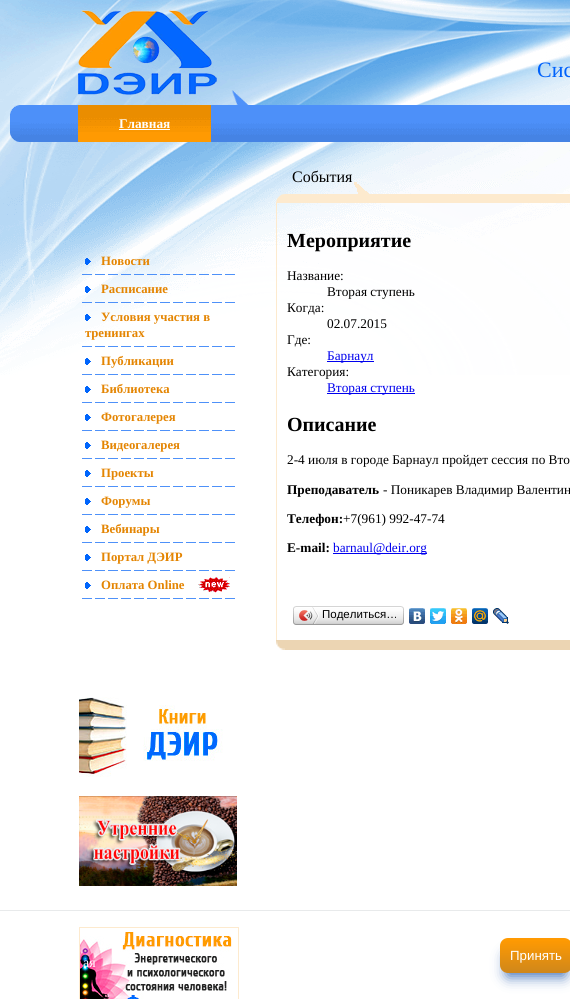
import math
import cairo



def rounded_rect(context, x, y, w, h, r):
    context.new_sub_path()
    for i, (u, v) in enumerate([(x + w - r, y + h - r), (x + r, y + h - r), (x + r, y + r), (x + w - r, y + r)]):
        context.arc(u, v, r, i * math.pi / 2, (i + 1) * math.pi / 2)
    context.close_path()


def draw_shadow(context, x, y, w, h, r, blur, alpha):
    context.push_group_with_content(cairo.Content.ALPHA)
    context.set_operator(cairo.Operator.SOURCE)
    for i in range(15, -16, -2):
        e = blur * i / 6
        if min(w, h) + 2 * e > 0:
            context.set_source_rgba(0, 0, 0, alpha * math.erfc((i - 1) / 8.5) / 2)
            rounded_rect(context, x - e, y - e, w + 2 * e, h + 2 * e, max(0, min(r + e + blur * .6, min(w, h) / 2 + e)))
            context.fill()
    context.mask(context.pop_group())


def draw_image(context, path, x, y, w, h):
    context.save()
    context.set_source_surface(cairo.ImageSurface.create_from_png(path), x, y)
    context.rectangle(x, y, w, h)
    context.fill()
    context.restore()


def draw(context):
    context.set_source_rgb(1, 1, 1)
    context.paint()
    draw_image(context, "images/1.png", 0, 0, 570, 375)
    draw_image(context, "images/2.png", 78, 10, 139, 85)
    draw_image(context, "images/3.png", 231, 90, 18, 15)
    draw_image(context, "images/4.png", 10, 105, 10, 37)
    draw_image(context, "images/5.png", 20, 105, 550, 37)
    draw_image(context, "images/6.png", 78, 105, 133, 37)
    context.set_source_rgb(1, 1, 1)
    context.rectangle(119, 129, 51, 1)
    context.fill()
    draw_image(context, "images/7.png", 82, 274, 153, 1)
    draw_image(context, "images/8.png", 85, 258, 6, 7)
    draw_image(context, "images/9.png", 82, 302, 153, 1)
    draw_image(context, "images/10.png", 85, 286, 6, 7)
    draw_image(context, "images/11.png", 82, 346, 153, 1)
    draw_image(context, "images/12.png", 85, 314, 6, 7)
    draw_image(context, "images/13.png", 82, 374, 153, 1)
    draw_image(context, "images/14.png", 85, 358, 6, 7)
    draw_image(context, "images/13.png", 82, 402, 153, 1)
    draw_image(context, "images/14.png", 85, 386, 6, 7)
    draw_image(context, "images/13.png", 82, 430, 153, 1)
    draw_image(context, "images/14.png", 85, 414, 6, 7)
    draw_image(context, "images/13.png", 82, 458, 153, 1)
    draw_image(context, "images/14.png", 85, 442, 6, 7)
    draw_image(context, "images/13.png", 82, 486, 153, 1)
    draw_image(context, "images/14.png", 85, 470, 6, 7)
    draw_image(context, "images/13.png", 82, 514, 153, 1)
    draw_image(context, "images/14.png", 85, 498, 6, 7)
    draw_image(context, "images/13.png", 82, 542, 153, 1)
    draw_image(context, "images/14.png", 85, 526, 6, 7)
    draw_image(context, "images/13.png", 82, 570, 153, 1)
    draw_image(context, "images/14.png", 85, 554, 6, 7)
    draw_image(context, "images/13.png", 82, 598, 153, 1)
    draw_image(context, "images/14.png", 85, 582, 6, 7)
    draw_image(context, "images/15.png", 198, 577, 32, 16)
    draw_image(context, "images/16.png", 79, 697, 144, 80)
    draw_image(context, "images/17.png", 79, 796, 158, 90)
    context.rectangle(79.5, 927.5, 159, 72)
    context.set_source_rgb(253 / 255, 234 / 255, 206 / 255)
    context.set_line_width(1)
    context.stroke()
    draw_image(context, "images/18.png", 80, 932, 152, 67)
    draw_image(context, "images/19.png", 354, 182, 15, 12)
    context.rectangle(276, 202, 1, 438)
    context.fill()
    draw_image(context, "images/20.png", 276, 194, 9, 9)
    context.rectangle(285, 194, 285, 9)
    context.fill()
    context.set_source_rgb(0, 0, 238 / 255)
    context.rectangle(327, 361, 47, 1)
    context.fill()
    context.rectangle(327, 393, 88, 1)
    context.fill()
    context.rectangle(333, 553, 94, 1)
    context.fill()
    draw_image(context, "images/21.png", 296, 606, 105, 19)
    draw_image(context, "images/22.png", 293, 606, 3, 19)
    draw_image(context, "images/23.png", 299, 607, 20, 17)
    draw_image(context, "images/24.png", 401, 606, 3, 19)
    draw_image(context, "images/25.png", 409, 608, 16, 16)
    draw_image(context, "images/26.png", 430, 608, 16, 16)
    draw_image(context, "images/27.png", 451, 608, 16, 16)
    draw_image(context, "images/28.png", 472, 608, 16, 16)
    draw_image(context, "images/29.png", 493, 608, 16, 16)
    context.set_source_rgb(236 / 255, 213 / 255, 179 / 255)
    context.rectangle(276, 640, 294, 10)
    context.fill()
    draw_image(context, "images/30.png", 276, 641, 9, 9)
    context.set_source_rgb(232 / 255, 234 / 255, 235 / 255)
    context.rectangle(0, 910, 570, 1)
    context.fill()
    context.set_source_rgb(52 / 255, 103 / 255, 179 / 255)
    draw_shadow(context, 507, 955, 58, 21, 1, 7, 1)
    gradient = cairo.LinearGradient(536, 938, 536, 973)
    gradient.add_color_stop_rgba(0.05, 1, 154 / 255, 2 / 255, 1)
    gradient.add_color_stop_rgba(1, 207 / 255, 135 / 255, 27 / 255, 1)
    context.set_source(gradient)
    rounded_rect(context, 500, 938, 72, 35, 8)
    context.fill()
    context.select_font_face("Liberation Serif")
    context.set_font_size(22)
    context.set_source_rgb(0, 98 / 255, 251 / 255)
    context.move_to(537, 77)
    context.show_text("Сис")
    context.select_font_face("Liberation Serif", cairo.FontSlant.NORMAL, cairo.FontWeight.BOLD)
    context.set_font_size(13.3)
    context.set_source_rgb(1, 1, 1)
    context.move_to(119, 128)
    context.show_text("Главная")
    context.set_font_size(12.75)
    context.set_source_rgb(228 / 255, 133 / 255, 2 / 255)
    context.move_to(101, 265)
    context.show_text("Новости")
    context.move_to(101, 293)
    context.show_text("Расписание")
    context.move_to(101, 321)
    context.show_text("Условия участия в")
    context.move_to(85, 337)
    context.show_text("тренингах")
    context.move_to(101, 365)
    context.show_text("Публикации")
    context.move_to(101, 393)
    context.show_text("Библиотека")
    context.move_to(101, 421)
    context.show_text("Фотогалерея")
    context.move_to(101, 449)
    context.show_text("Видеогалерея")
    context.move_to(101, 477)
    context.show_text("Проекты")
    context.move_to(101, 505)
    context.show_text("Форумы")
    context.move_to(101, 533)
    context.show_text("Вебинары")
    context.move_to(101, 561)
    context.show_text("Портал ДЭИР")
    context.move_to(101, 589)
    context.show_text("Оплата Online")
    context.select_font_face("Liberation Serif")
    context.set_font_size(16)
    context.set_source_rgb(0, 0, 0)
    context.move_to(292, 182)
    context.show_text("События")
    context.select_font_face("Liberation Serif", cairo.FontSlant.NORMAL, cairo.FontWeight.BOLD)
    context.set_font_size(20)
    context.move_to(287, 247)
    context.show_text("Мероприятие")
    context.select_font_face("Liberation Serif")
    context.set_font_size(13.3)
    context.move_to(287, 280)
    context.show_text("Название:")
    context.move_to(327, 296)
    context.show_text("Вторая ступень")
    context.move_to(287, 312)
    context.show_text("Когда:")
    context.move_to(327, 328)
    context.show_text("02.07.2015")
    context.move_to(287, 344)
    context.show_text("Где:")
    context.set_source_rgb(0, 0, 238 / 255)
    context.move_to(327, 360)
    context.show_text("Барнаул")
    context.set_source_rgb(0, 0, 0)
    context.move_to(287, 376)
    context.show_text("Категория:")
    context.set_source_rgb(0, 0, 238 / 255)
    context.move_to(327, 392)
    context.show_text("Вторая ступень")
    context.select_font_face("Liberation Serif", cairo.FontSlant.NORMAL, cairo.FontWeight.BOLD)
    context.set_font_size(20)
    context.set_source_rgb(0, 0, 0)
    context.move_to(287, 431)
    context.show_text("Описание")
    context.select_font_face("Liberation Serif")
    context.set_font_size(13.3)
    context.move_to(287, 464)
    context.show_text("2-4 июля в городе Барнаул пройдет сессия по Вто")
    context.select_font_face("Liberation Serif", cairo.FontSlant.NORMAL, cairo.FontWeight.BOLD)
    context.move_to(287, 494)
    context.show_text("Преподаватель")
    context.select_font_face("Liberation Serif")
    context.move_to(383, 494)
    context.show_text("- Поникарев Владимир Валентин")
    context.select_font_face("Liberation Serif", cairo.FontSlant.NORMAL, cairo.FontWeight.BOLD)
    context.move_to(287, 523)
    context.show_text("Телефон:")
    context.select_font_face("Liberation Serif")
    context.move_to(343, 523)
    context.show_text("+7(961) 992-47-74")
    context.select_font_face("Liberation Serif", cairo.FontSlant.NORMAL, cairo.FontWeight.BOLD)
    context.move_to(287, 552)
    context.show_text("E-mail:")
    context.select_font_face("Liberation Serif")
    context.set_source_rgb(0, 0, 238 / 255)
    context.move_to(333, 552)
    context.show_text("barnaul@deir.org")
    context.select_font_face("Liberation Sans")
    context.set_font_size(11.5)
    context.set_source_rgb(0, 0, 0)
    context.move_to(322, 618)
    context.show_text("Поделиться…")
    context.set_font_size(13.3)
    context.set_source_rgb(1, 1, 1)
    context.move_to(510, 960)
    context.show_text("Принять")
    context.select_font_face("Liberation Serif")
    context.set_font_size(14)
    context.move_to(83, 967)
    context.show_text("ая")


surface = cairo.ImageSurface(cairo.Format.RGB24, 570, 999)
context = cairo.Context(surface)
options = cairo.FontOptions()
options.set_hint_metrics(cairo.HintMetrics.OFF)
options.set_hint_style(cairo.HintStyle.NONE)
context.set_font_options(options)
context.set_miter_limit(4)
draw(context)
surface.write_to_png("out.png")
